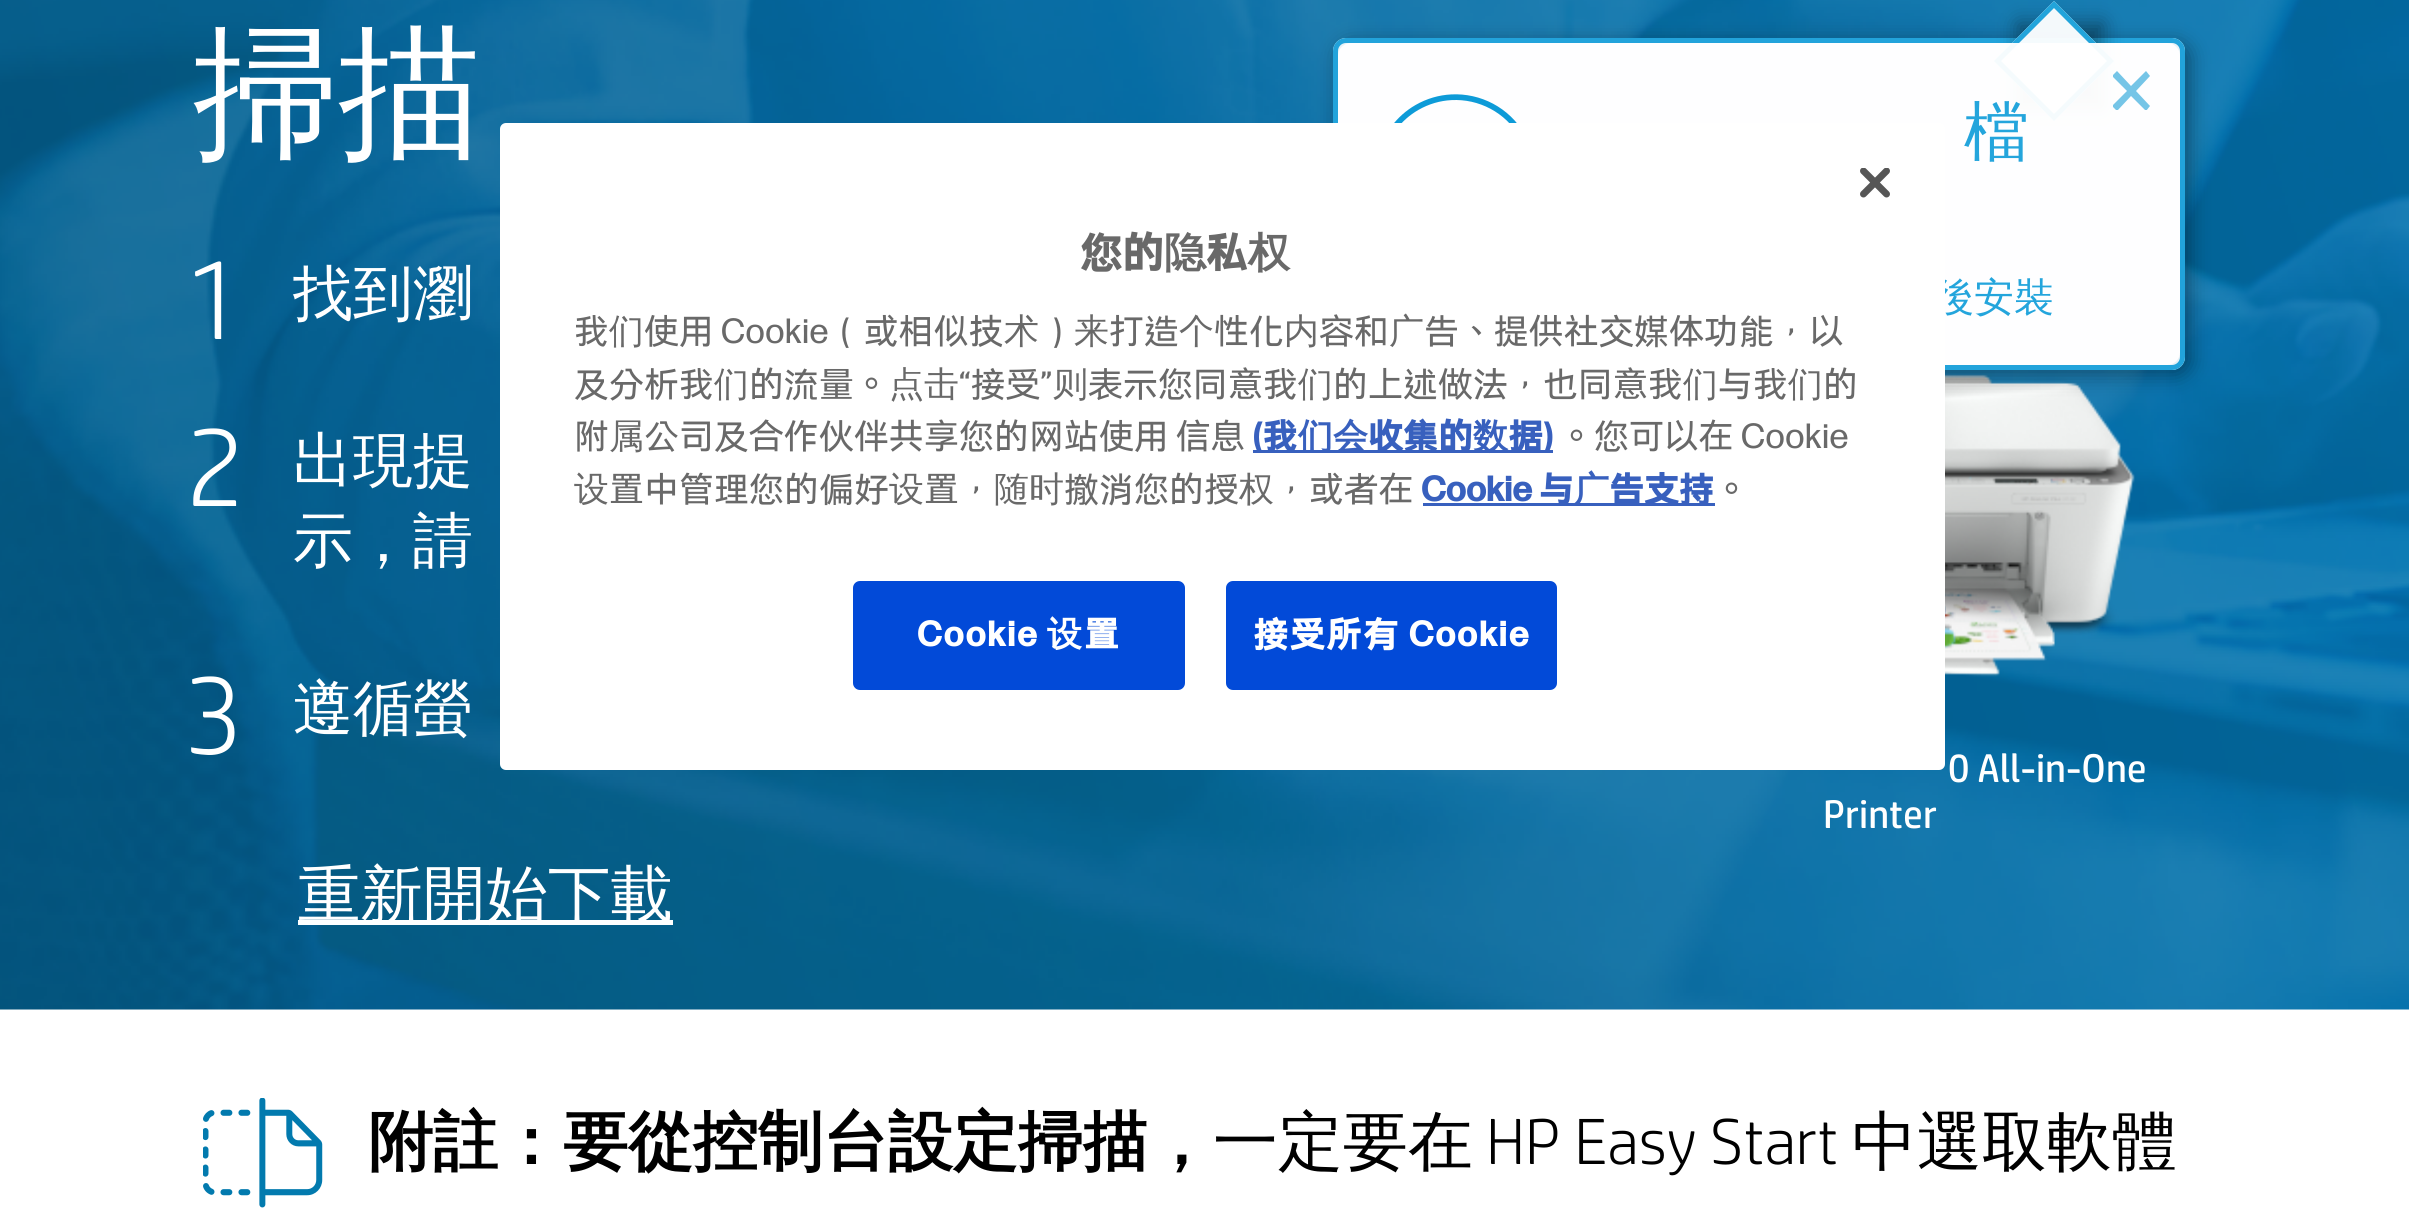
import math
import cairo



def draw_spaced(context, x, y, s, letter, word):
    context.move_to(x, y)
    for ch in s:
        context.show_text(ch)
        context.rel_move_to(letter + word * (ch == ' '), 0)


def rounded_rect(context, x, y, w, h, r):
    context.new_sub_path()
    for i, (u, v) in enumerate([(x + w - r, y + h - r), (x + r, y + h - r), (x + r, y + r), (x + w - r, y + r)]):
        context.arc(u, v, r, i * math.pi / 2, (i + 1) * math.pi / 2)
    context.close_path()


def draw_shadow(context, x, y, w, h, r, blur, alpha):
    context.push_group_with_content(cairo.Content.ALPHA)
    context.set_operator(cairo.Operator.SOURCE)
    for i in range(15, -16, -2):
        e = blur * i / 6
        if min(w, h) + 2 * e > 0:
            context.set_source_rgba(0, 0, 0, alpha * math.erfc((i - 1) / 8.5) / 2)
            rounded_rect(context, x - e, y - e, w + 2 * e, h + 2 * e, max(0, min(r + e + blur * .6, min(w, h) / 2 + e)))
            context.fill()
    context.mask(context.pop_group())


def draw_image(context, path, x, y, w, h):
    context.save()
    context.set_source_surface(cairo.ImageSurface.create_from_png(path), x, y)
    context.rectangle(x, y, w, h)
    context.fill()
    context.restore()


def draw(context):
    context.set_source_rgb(1, 1, 1)
    context.paint()
    draw_image(context, "images/1.png", 0, 0, 2409, 1010)
    context.set_source_rgb(1, 1, 1)
    context.rectangle(298, 920, 375, 5)
    context.fill()
    draw_image(context, "images/2.png", 1945, 374, 190, 303)
    context.save()
    context.set_fill_rule(cairo.FillRule.EVEN_ODD)
    context.new_path()
    context.move_to(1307, 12)
    context.line_to(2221, 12)
    context.line_to(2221, 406)
    context.line_to(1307, 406)
    context.close_path()
    context.move_to(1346, 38)
    context.line_to(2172, 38)
    context.curve_to(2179, 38, 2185, 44, 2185, 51)
    context.line_to(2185, 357)
    context.curve_to(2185, 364, 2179, 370, 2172, 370)
    context.line_to(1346, 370)
    context.curve_to(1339, 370, 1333, 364, 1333, 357)
    context.line_to(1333, 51)
    context.curve_to(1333, 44, 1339, 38, 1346, 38)
    context.close_path()
    context.clip()
    context.set_source_rgb(0, 0, 0)
    draw_shadow(context, 1338, 43, 852, 332, 13, 10, 0.38)
    context.restore()
    context.set_source_rgba(1, 1, 1, 0.9)
    rounded_rect(context, 1333, 38, 852, 332, 13)
    context.fill()
    rounded_rect(context, 1335.5, 40.5, 847, 327, 10.5)
    context.set_source_rgba(25 / 255, 160 / 255, 218 / 255, 0.95)
    context.set_line_width(5)
    context.stroke()
    context.save()
    context.set_fill_rule(cairo.FillRule.EVEN_ODD)
    context.new_path()
    context.move_to(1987, 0)
    context.line_to(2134, 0)
    context.line_to(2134, 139)
    context.line_to(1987, 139)
    context.close_path()
    context.move_to(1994, 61)
    context.line_to(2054, 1)
    context.line_to(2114, 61)
    context.line_to(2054, 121.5)
    context.close_path()
    context.clip()
    context.set_source_rgb(0, 0, 0)
    draw_shadow(context, 2018, 23, 85, 85, 0, 10, 0.38)
    context.restore()
    context.set_source_rgba(1, 1, 1, 0.95)
    context.new_path()
    context.move_to(1994, 61)
    context.line_to(2054, 1)
    context.line_to(2114, 61)
    context.line_to(2054, 121)
    context.close_path()
    context.fill()
    context.new_path()
    context.move_to(1997.5, 61)
    context.line_to(2054, 4.5)
    context.line_to(2110.5, 61)
    context.line_to(2054, 117.5)
    context.close_path()
    context.set_source_rgba(25 / 255, 160 / 255, 218 / 255, 0.95)
    context.stroke()
    context.set_source_rgba(1, 1, 1, 0.95)
    rounded_rect(context, 1338, 43, 842, 322, 13)
    context.fill()
    context.save()
    context.rectangle(2113, 70, 37, 40)
    context.clip()
    context.set_source_rgb(117 / 255, 197 / 255, 231 / 255)
    context.new_path()
    context.move_to(2150, 76)
    context.line_to(2146, 71)
    context.line_to(2131, 86)
    context.line_to(2117, 71)
    context.line_to(2112, 76)
    context.line_to(2127, 91)
    context.line_to(2112, 106)
    context.line_to(2117, 111)
    context.line_to(2131, 96)
    context.line_to(2146, 111)
    context.line_to(2150, 106)
    context.line_to(2136, 91)
    context.close_path()
    context.fill()
    context.restore()
    draw_image(context, "images/3.png", 1394, 94, 123, 29)
    draw_image(context, "images/4.png", 203, 1098, 120, 110)
    context.select_font_face("WenQuanYi Zen Hei Medium")
    context.set_font_size(145)
    context.set_source_rgb(1, 1, 1)
    context.move_to(193, 143)
    context.show_text("掃描")
    context.select_font_face("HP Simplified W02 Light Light")
    context.set_font_size(112)
    context.move_to(185, 339)
    context.show_text("1")
    context.select_font_face("WenQuanYi Zen Hei Medium")
    context.set_font_size(60)
    context.move_to(293, 314)
    context.show_text("找到瀏")
    context.select_font_face("HP Simplified W02 Light Light")
    context.set_font_size(112)
    context.move_to(185, 506)
    context.show_text("2")
    context.select_font_face("WenQuanYi Zen Hei Medium")
    context.set_font_size(60)
    context.move_to(293, 481)
    context.show_text("出現提")
    context.move_to(293, 561)
    context.show_text("示，請")
    context.select_font_face("HP Simplified W02 Light Light")
    context.set_font_size(112)
    context.move_to(185, 754)
    context.show_text("3")
    context.select_font_face("WenQuanYi Zen Hei Medium")
    context.set_font_size(60)
    context.move_to(293, 729)
    context.show_text("遵循螢")
    context.set_font_size(62.5)
    context.move_to(298, 916)
    context.show_text("重新開始下載")
    context.select_font_face("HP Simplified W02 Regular")
    context.set_font_size(40)
    context.move_to(1948, 782)
    context.show_text("0 All-in-One")
    context.move_to(1823, 828)
    context.show_text("Printer")
    context.select_font_face("WenQuanYi Zen Hei Medium")
    context.set_font_size(65)
    context.set_source_rgb(36 / 255, 165 / 255, 220 / 255)
    context.move_to(1964, 154)
    context.show_text("檔")
    context.set_font_size(40)
    context.move_to(1934, 311)
    context.show_text("後安裝")
    context.select_font_face("WenQuanYi Zen Hei", cairo.FontSlant.NORMAL, cairo.FontWeight.BOLD)
    context.set_font_size(65)
    context.set_source_rgb(0, 0, 0)
    context.move_to(368, 1164)
    context.show_text("附註：要從控制台設定掃描，")
    context.select_font_face("WenQuanYi Zen Hei Medium")
    context.move_to(1213, 1164)
    context.show_text("一定要在")
    context.select_font_face("HP Simplified W02 Light Light")
    context.move_to(1486, 1164)
    context.show_text("HP Easy Start")
    context.select_font_face("WenQuanYi Zen Hei Medium")
    context.move_to(1852, 1164)
    context.show_text("中選取軟體")
    context.set_source_rgb(1, 1, 1)
    rounded_rect(context, 500, 123, 1445, 647, 6)
    context.fill()
    draw_image(context, "images/5.png", 1860, 168, 30, 30)
    context.select_font_face("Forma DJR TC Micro", cairo.FontSlant.NORMAL, cairo.FontWeight.BOLD)
    context.set_font_size(42)
    context.set_source_rgb(105 / 255, 105 / 255, 105 / 255)
    context.move_to(1080, 267)
    context.show_text("您的")
    context.select_font_face("WenQuanYi Zen Hei", cairo.FontSlant.NORMAL, cairo.FontWeight.BOLD)
    context.move_to(1164, 267)
    context.show_text("隐")
    context.select_font_face("Forma DJR TC Micro", cairo.FontSlant.NORMAL, cairo.FontWeight.BOLD)
    context.move_to(1206, 267)
    context.show_text("私")
    context.select_font_face("WenQuanYi Zen Hei", cairo.FontSlant.NORMAL, cairo.FontWeight.BOLD)
    context.move_to(1248, 267)
    context.show_text("权")
    context.select_font_face("Forma DJR TC Micro")
    context.set_font_size(35)
    context.move_to(574, 343)
    context.show_text("我")
    context.select_font_face("WenQuanYi Zen Hei Medium")
    context.move_to(609, 343)
    context.show_text("们")
    context.select_font_face("Forma DJR TC Micro")
    context.move_to(644, 343)
    context.show_text("使用 Cookie（或相似技")
    context.select_font_face("WenQuanYi Zen Hei Medium")
    context.move_to(1004, 343)
    context.show_text("术")
    context.select_font_face("Forma DJR TC Micro")
    context.move_to(1039, 343)
    context.show_text("）")
    context.select_font_face("WenQuanYi Zen Hei Medium")
    context.move_to(1074, 343)
    context.show_text("来")
    context.select_font_face("Forma DJR TC Micro")
    context.move_to(1109, 343)
    context.show_text("打造")
    context.select_font_face("WenQuanYi Zen Hei Medium")
    context.move_to(1179, 343)
    context.show_text("个")
    context.select_font_face("Forma DJR TC Micro")
    context.move_to(1214, 343)
    context.show_text("性化")
    context.select_font_face("WenQuanYi Zen Hei Medium")
    context.move_to(1284, 343)
    context.show_text("内")
    context.select_font_face("Forma DJR TC Micro")
    context.move_to(1319, 343)
    context.show_text("容和")
    context.select_font_face("WenQuanYi Zen Hei Medium")
    context.move_to(1389, 343)
    context.show_text("广")
    context.select_font_face("Forma DJR TC Micro")
    context.move_to(1424, 343)
    context.show_text("告、提供社交媒体功能，以")
    context.move_to(574, 396)
    context.show_text("及分析我")
    context.select_font_face("WenQuanYi Zen Hei Medium")
    context.move_to(714, 396)
    context.show_text("们")
    context.select_font_face("Forma DJR TC Micro")
    context.move_to(749, 396)
    context.show_text("的流量。")
    context.select_font_face("WenQuanYi Zen Hei Medium")
    context.move_to(889, 396)
    context.show_text("点击")
    context.select_font_face("Forma DJR TC Micro")
    context.move_to(959, 396)
    context.show_text("“接受”")
    context.select_font_face("WenQuanYi Zen Hei Medium")
    context.move_to(1053, 396)
    context.show_text("则")
    context.select_font_face("Forma DJR TC Micro")
    context.move_to(1088, 396)
    context.show_text("表示您同意我")
    context.select_font_face("WenQuanYi Zen Hei Medium")
    context.move_to(1298, 396)
    context.show_text("们")
    context.select_font_face("Forma DJR TC Micro")
    context.move_to(1333, 396)
    context.show_text("的上述做法，也同意我")
    context.select_font_face("WenQuanYi Zen Hei Medium")
    context.move_to(1683, 396)
    context.show_text("们")
    context.select_font_face("Forma DJR TC Micro")
    context.move_to(1718, 396)
    context.show_text("与我")
    context.select_font_face("WenQuanYi Zen Hei Medium")
    context.move_to(1788, 396)
    context.show_text("们")
    context.select_font_face("Forma DJR TC Micro")
    context.move_to(1823, 396)
    context.show_text("的")
    context.move_to(574, 448)
    context.show_text("附")
    context.select_font_face("WenQuanYi Zen Hei Medium")
    context.move_to(609, 448)
    context.show_text("属")
    context.select_font_face("Forma DJR TC Micro")
    context.move_to(644, 448)
    context.show_text("公司及合作伙伴共享您的网站使用 信息")
    context.set_source_rgb(56 / 255, 96 / 255, 190 / 255)
    context.rectangle(1253, 450, 300, 3)
    context.fill()
    context.select_font_face("Forma DJR TC Micro", cairo.FontSlant.NORMAL, cairo.FontWeight.BOLD)
    context.move_to(1253, 448)
    context.show_text("(我")
    context.select_font_face("WenQuanYi Zen Hei", cairo.FontSlant.NORMAL, cairo.FontWeight.BOLD)
    context.move_to(1298, 448)
    context.show_text("们会")
    context.select_font_face("Forma DJR TC Micro", cairo.FontSlant.NORMAL, cairo.FontWeight.BOLD)
    context.move_to(1368, 448)
    context.show_text("收集的")
    context.select_font_face("WenQuanYi Zen Hei", cairo.FontSlant.NORMAL, cairo.FontWeight.BOLD)
    context.move_to(1473, 448)
    context.show_text("数")
    context.select_font_face("Forma DJR TC Micro", cairo.FontSlant.NORMAL, cairo.FontWeight.BOLD)
    context.move_to(1508, 448)
    context.show_text("据)")
    context.select_font_face("Forma DJR TC Micro")
    context.set_source_rgb(105 / 255, 105 / 255, 105 / 255)
    context.move_to(1559, 448)
    context.show_text("。您可以在 Cookie")
    context.select_font_face("WenQuanYi Zen Hei Medium")
    context.move_to(574, 501)
    context.show_text("设")
    context.select_font_face("Forma DJR TC Micro")
    context.move_to(609, 501)
    context.show_text("置中管理您的偏好")
    context.select_font_face("WenQuanYi Zen Hei Medium")
    context.move_to(889, 501)
    context.show_text("设")
    context.select_font_face("Forma DJR TC Micro")
    context.move_to(924, 501)
    context.show_text("置，")
    context.select_font_face("WenQuanYi Zen Hei Medium")
    context.move_to(994, 501)
    context.show_text("随时")
    context.select_font_face("Forma DJR TC Micro")
    context.move_to(1064, 501)
    context.show_text("撤消您的授")
    context.select_font_face("WenQuanYi Zen Hei Medium")
    context.move_to(1239, 501)
    context.show_text("权")
    context.select_font_face("Forma DJR TC Micro")
    context.move_to(1274, 501)
    context.show_text("，或者在")
    context.set_source_rgb(56 / 255, 96 / 255, 190 / 255)
    context.rectangle(1423, 503, 292, 3)
    context.fill()
    context.select_font_face("Forma DJR TC Micro", cairo.FontSlant.NORMAL, cairo.FontWeight.BOLD)
    context.move_to(1421, 501)
    context.show_text("Cookie 与")
    context.select_font_face("WenQuanYi Zen Hei", cairo.FontSlant.NORMAL, cairo.FontWeight.BOLD)
    context.move_to(1574, 501)
    context.show_text("广")
    context.select_font_face("Forma DJR TC Micro", cairo.FontSlant.NORMAL, cairo.FontWeight.BOLD)
    context.move_to(1609, 501)
    context.show_text("告支持")
    context.select_font_face("Forma DJR TC Micro")
    context.set_source_rgb(105 / 255, 105 / 255, 105 / 255)
    context.move_to(1714, 501)
    context.show_text("。")
    context.set_source_rgb(2 / 255, 74 / 255, 216 / 255)
    rounded_rect(context, 851.5, 579.5, 335, 112, 8.5)
    context.fill_preserve()
    context.set_source_rgb(1, 1, 1)
    context.set_line_width(3)
    context.stroke()
    context.select_font_face("Forma DJR TC Micro", cairo.FontSlant.NORMAL, cairo.FontWeight.BOLD)
    draw_spaced(context, 917, 646, "Cookie", 1.75, 0)
    context.select_font_face("WenQuanYi Zen Hei", cairo.FontSlant.NORMAL, cairo.FontWeight.BOLD)
    draw_spaced(context, 1047, 646, "设", 1.75, 0)
    context.select_font_face("Forma DJR TC Micro", cairo.FontSlant.NORMAL, cairo.FontWeight.BOLD)
    draw_spaced(context, 1084, 646, "置", 1.75, 0)
    context.set_source_rgb(2 / 255, 74 / 255, 216 / 255)
    rounded_rect(context, 1224.5, 579.5, 334, 112, 8.5)
    context.fill_preserve()
    context.set_source_rgb(1, 1, 1)
    context.stroke()
    draw_spaced(context, 1253, 646, "接受所有 Cookie", 1.75, 0)


surface = cairo.ImageSurface(cairo.Format.RGB24, 2409, 1216)
context = cairo.Context(surface)
options = cairo.FontOptions()
options.set_hint_metrics(cairo.HintMetrics.OFF)
options.set_hint_style(cairo.HintStyle.NONE)
context.set_font_options(options)
context.set_miter_limit(4)
draw(context)
surface.write_to_png("out.png")
